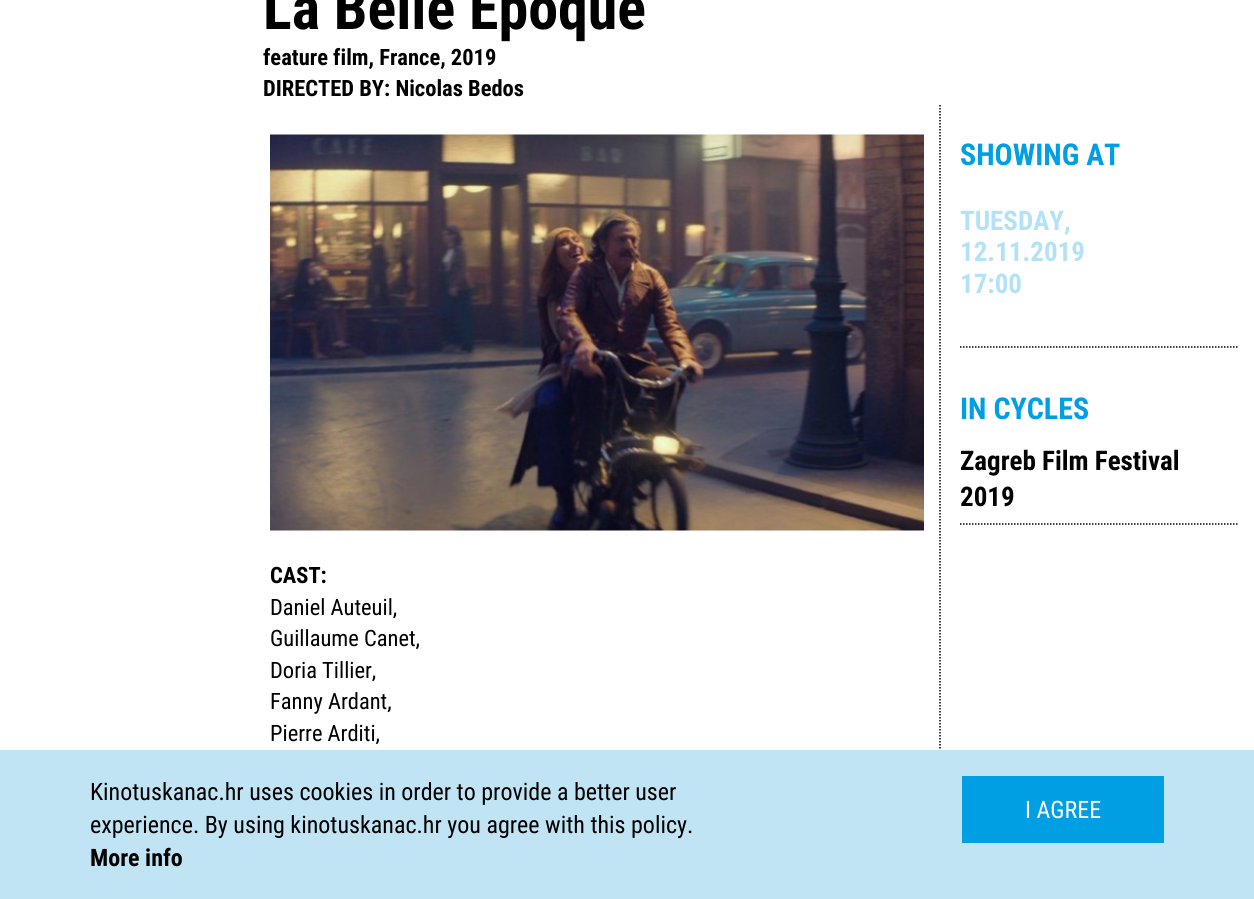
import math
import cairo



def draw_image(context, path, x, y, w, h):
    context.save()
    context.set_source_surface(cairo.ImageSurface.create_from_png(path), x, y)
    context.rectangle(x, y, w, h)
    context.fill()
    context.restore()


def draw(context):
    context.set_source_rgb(1, 1, 1)
    context.paint()
    context.new_path()
    context.move_to(960, 347)
    context.line_to(1239, 347)
    context.set_source_rgb(0, 0, 0)
    context.set_line_width(1.5)
    context.set_dash([1.5, 1.5])
    context.stroke()
    context.new_path()
    context.move_to(960, 524)
    context.line_to(1239, 524)
    context.stroke()
    context.new_path()
    context.move_to(940, 105)
    context.line_to(940, 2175)
    context.stroke()
    draw_image(context, "images/1.png", 270, 134, 654, 397)
    context.set_source_rgb(192 / 255, 228 / 255, 243 / 255)
    context.rectangle(0, 750, 1254, 149)
    context.fill()
    context.set_source_rgb(0, 158 / 255, 227 / 255)
    context.rectangle(962, 776, 202, 67)
    context.fill()
    context.select_font_face("Roboto Condensed", cairo.FontSlant.NORMAL, cairo.FontWeight.BOLD)
    context.set_font_size(60)
    context.set_source_rgb(0, 0, 0)
    context.move_to(263, 29)
    context.show_text("La Belle Époque")
    context.set_font_size(22.5)
    context.move_to(263, 65)
    context.show_text("feature film, France, 2019")
    context.move_to(263, 96)
    context.show_text("DIRECTED BY: Nicolas Bedos")
    context.set_font_size(30)
    context.set_source_rgb(0, 158 / 255, 227 / 255)
    context.move_to(960, 165)
    context.show_text("SHOWING AT")
    context.set_font_size(27)
    context.set_source_rgb(179 / 255, 226 / 255, 247 / 255)
    context.move_to(960, 230)
    context.show_text("TUESDAY,")
    context.move_to(960, 261)
    context.show_text("12.11.2019")
    context.move_to(960, 293)
    context.show_text("17:00")
    context.set_font_size(30)
    context.set_source_rgb(0, 158 / 255, 227 / 255)
    context.move_to(960, 419)
    context.show_text("IN CYCLES")
    context.set_font_size(27)
    context.set_source_rgb(0, 0, 0)
    context.move_to(960, 470)
    context.show_text("Zagreb Film Festival")
    context.move_to(960, 506)
    context.show_text("2019")
    context.set_font_size(22.5)
    context.move_to(270, 583)
    context.show_text("CAST:")
    context.select_font_face("Roboto Condensed")
    context.move_to(270, 615)
    context.show_text("Daniel Auteuil,")
    context.move_to(270, 646)
    context.show_text("Guillaume Canet,")
    context.move_to(270, 678)
    context.show_text("Doria Tillier,")
    context.move_to(270, 709)
    context.show_text("Fanny Ardant,")
    context.move_to(270, 741)
    context.show_text("Pierre Arditi,")
    context.set_font_size(24)
    context.move_to(90, 800)
    context.show_text("Kinotuskanac.hr uses cookies in order to provide a better user")
    context.move_to(90, 833)
    context.show_text("experience. By using kinotuskanac.hr you agree with this policy.")
    context.select_font_face("Roboto Condensed", cairo.FontSlant.NORMAL, cairo.FontWeight.BOLD)
    context.move_to(90, 866)
    context.show_text("More info")
    context.select_font_face("Roboto Condensed")
    context.set_source_rgb(1, 1, 1)
    context.move_to(1025, 818)
    context.show_text("I AGREE")


surface = cairo.ImageSurface(cairo.Format.RGB24, 1254, 899)
context = cairo.Context(surface)
options = cairo.FontOptions()
options.set_hint_metrics(cairo.HintMetrics.OFF)
options.set_hint_style(cairo.HintStyle.NONE)
context.set_font_options(options)
context.set_miter_limit(4)
draw(context)
surface.write_to_png("out.png")
